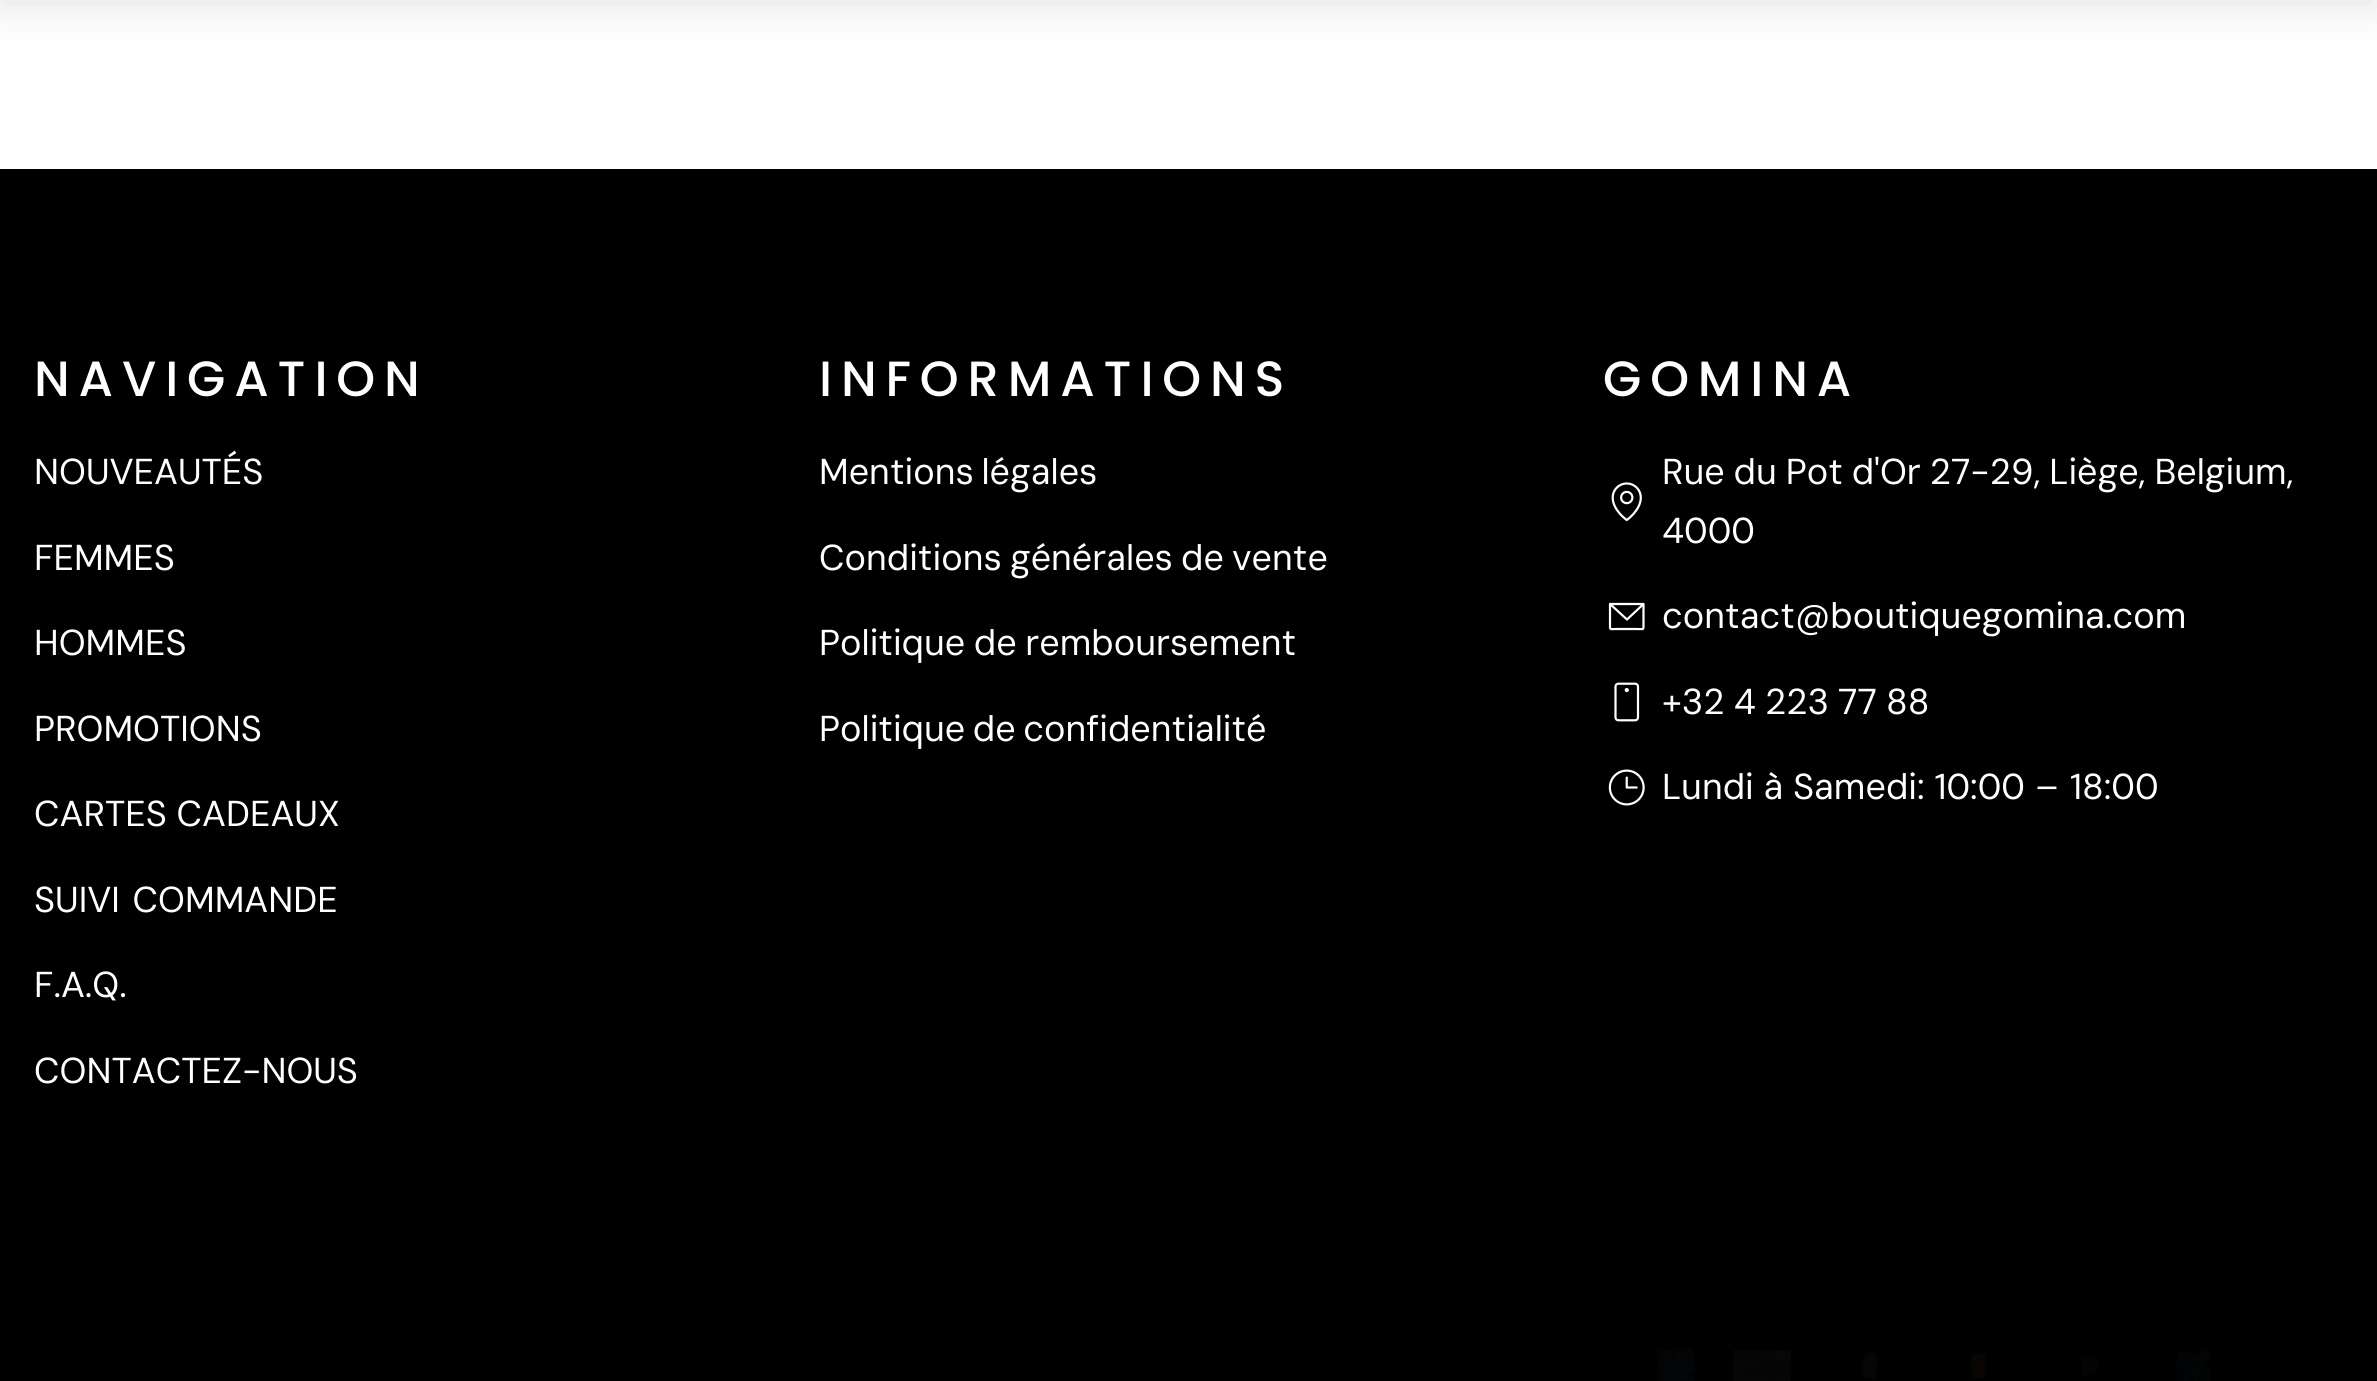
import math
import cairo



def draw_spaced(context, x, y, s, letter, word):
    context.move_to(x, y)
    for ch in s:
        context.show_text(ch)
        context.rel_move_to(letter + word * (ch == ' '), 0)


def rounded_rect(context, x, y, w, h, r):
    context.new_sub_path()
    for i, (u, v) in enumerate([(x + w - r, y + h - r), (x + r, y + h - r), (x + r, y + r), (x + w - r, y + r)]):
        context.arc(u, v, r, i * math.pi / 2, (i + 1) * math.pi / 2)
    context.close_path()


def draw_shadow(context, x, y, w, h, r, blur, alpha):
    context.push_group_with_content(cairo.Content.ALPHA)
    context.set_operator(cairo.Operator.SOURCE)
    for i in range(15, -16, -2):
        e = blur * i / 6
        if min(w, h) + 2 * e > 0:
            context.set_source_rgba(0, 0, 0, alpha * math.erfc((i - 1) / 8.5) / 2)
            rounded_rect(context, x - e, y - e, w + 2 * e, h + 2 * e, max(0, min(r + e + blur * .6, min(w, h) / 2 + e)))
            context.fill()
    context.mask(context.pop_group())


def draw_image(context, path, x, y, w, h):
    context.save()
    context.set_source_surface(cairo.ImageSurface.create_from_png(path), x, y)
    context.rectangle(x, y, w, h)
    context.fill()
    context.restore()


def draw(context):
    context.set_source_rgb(1, 1, 1)
    context.paint()
    context.set_source_rgb(0, 0, 0)
    draw_shadow(context, 0, -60, 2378, 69, 0, 20, 0.1)
    context.set_source_rgb(0, 0, 0)
    context.rectangle(0, 169, 2377, 1212)
    context.fill()
    draw_image(context, "images/1.png", 1611, 482, 31, 40)
    context.new_path()
    context.move_to(1610, 604)
    context.line_to(1643.5, 604)
    context.line_to(1643.5, 624)
    context.curve_to(1643.5, 630.5, 1644, 629, 1637, 629)
    context.line_to(1616.5, 629)
    context.curve_to(1609.5, 629, 1610, 630.5, 1610, 624)
    context.close_path()
    context.move_to(1643.5, 604)
    context.line_to(1627, 619.5)
    context.line_to(1610, 604)
    context.set_source_rgb(1, 1, 1)
    context.set_line_width(2.2)
    context.set_line_cap(cairo.LineCap.ROUND)
    context.set_line_join(cairo.LineJoin.ROUND)
    context.stroke()
    draw_image(context, "images/2.png", 1614, 682, 26, 40)
    draw_image(context, "images/3.png", 1608, 769, 37, 37)
    draw_image(context, "images/4.png", 1657, 1349, 37, 32)
    draw_image(context, "images/5.png", 1733, 1350, 58, 31)
    draw_image(context, "images/6.png", 1863, 1353, 14, 26)
    draw_image(context, "images/7.png", 1971, 1353, 14, 26)
    draw_image(context, "images/8.png", 2081, 1356, 16, 19)
    draw_image(context, "images/9.png", 2177, 1351, 33, 30)
    context.select_font_face("Poppins Medium")
    context.set_font_size(49.5)
    draw_spaced(context, 34, 396, "N A V I G A T I O N", -2, 0)
    context.select_font_face("DM Sans")
    context.set_font_size(36)
    context.move_to(34, 484)
    context.show_text("NOUVEAUTÉS")
    context.move_to(34, 570)
    context.show_text("FEMMES")
    context.move_to(34, 655)
    context.show_text("HOMMES")
    context.move_to(34, 741)
    context.show_text("PROMOTIONS")
    context.move_to(34, 826)
    context.show_text("CARTES CADEAUX")
    draw_spaced(context, 34, 912, "SUIVI COMMANDE", 0, 3)
    context.move_to(34, 997)
    context.show_text("F.A.Q.")
    context.move_to(34, 1083)
    context.show_text("CONTACTEZ-NOUS")
    context.select_font_face("Poppins Medium")
    context.set_font_size(49.5)
    draw_spaced(context, 819, 396, "I N F O R M A T I O N S", -2, 0)
    context.select_font_face("DM Sans")
    context.set_font_size(36)
    draw_spaced(context, 819, 484, "Mentions légales", 0, -2)
    draw_spaced(context, 819, 570, "Conditions générales de vente", 0, -1.5)
    draw_spaced(context, 819, 655, "Politique de remboursement", 0, -1)
    draw_spaced(context, 819, 741, "Politique de confidentialité", 0, -2)
    context.select_font_face("Poppins Medium")
    context.set_font_size(49.5)
    draw_spaced(context, 1603, 396, "G O M I N A", -2, 0)
    context.select_font_face("DM Sans")
    context.set_font_size(36)
    draw_spaced(context, 1662, 484, "Rue du Pot d'Or 27-29, Liège, Belgium,", 0, -0.75)
    context.move_to(1662, 543)
    context.show_text("4000")
    context.move_to(1662, 628)
    context.show_text("contact@boutiquegomina.com")
    draw_spaced(context, 1662, 714, "+32 4 223 77 88", 0, -0.5)
    context.move_to(1662, 799)
    context.show_text("Lundi à Samedi: 10:00")
    draw_spaced(context, 2035, 799, "– 18:00", 0, 1)


surface = cairo.ImageSurface(cairo.Format.RGB24, 2377, 1381)
context = cairo.Context(surface)
options = cairo.FontOptions()
options.set_hint_metrics(cairo.HintMetrics.OFF)
options.set_hint_style(cairo.HintStyle.NONE)
context.set_font_options(options)
context.set_miter_limit(4)
draw(context)
surface.write_to_png("out.png")
